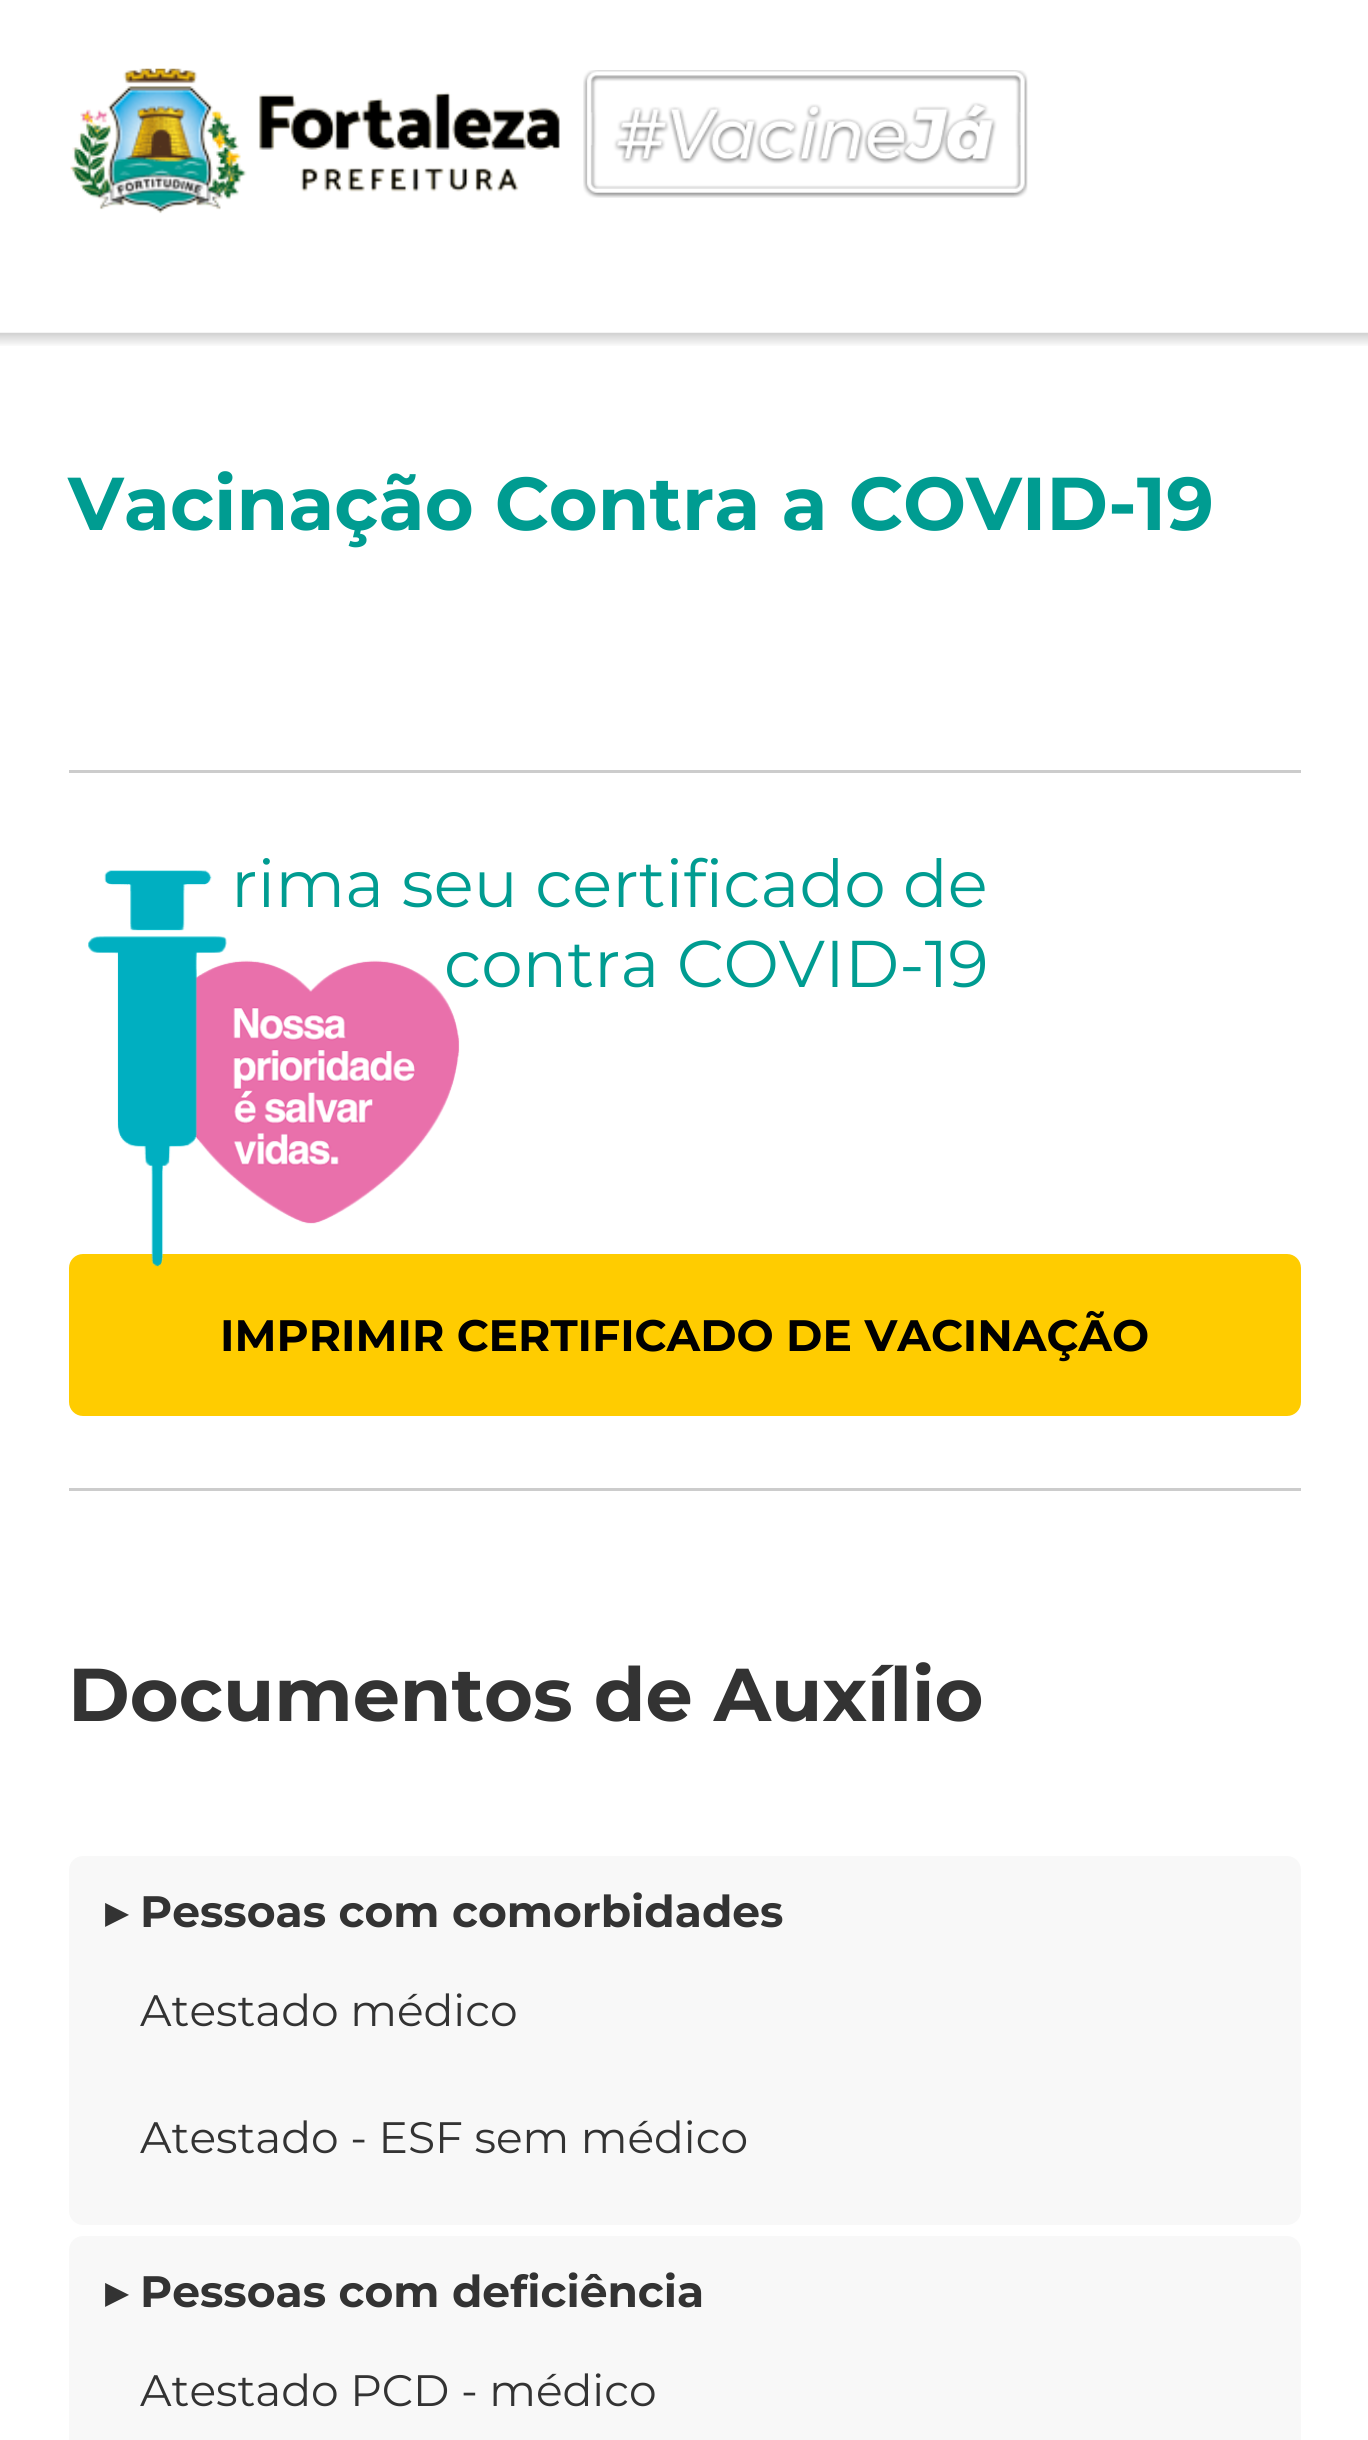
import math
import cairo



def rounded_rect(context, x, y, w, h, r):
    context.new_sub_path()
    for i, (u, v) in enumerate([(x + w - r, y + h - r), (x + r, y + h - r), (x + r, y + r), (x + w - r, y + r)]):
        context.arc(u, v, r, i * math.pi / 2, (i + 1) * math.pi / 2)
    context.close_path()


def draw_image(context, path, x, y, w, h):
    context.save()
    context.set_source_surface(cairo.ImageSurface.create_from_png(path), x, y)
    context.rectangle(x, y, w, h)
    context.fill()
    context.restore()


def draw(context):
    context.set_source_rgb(1, 1, 1)
    context.paint()
    draw_image(context, "images/1.png", 70, 68, 490, 146)
    draw_image(context, "images/2.png", 583, 70, 445, 128)
    draw_image(context, "images/3.png", 0, 332, 1368, 14)
    context.set_source_rgb(204 / 255, 204 / 255, 204 / 255)
    context.rectangle(69, 770, 1232, 3)
    context.fill()
    context.rectangle(69, 1488, 1232, 3)
    context.fill()
    context.set_source_rgb(1, 204 / 255, 0)
    rounded_rect(context, 69, 1254, 1232, 162, 14)
    context.fill()
    context.set_source_rgb(248 / 255, 248 / 255, 248 / 255)
    rounded_rect(context, 69, 1856, 1232, 369, 14)
    context.fill()
    rounded_rect(context, 69, 2236, 1232, 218, 14)
    context.fill()
    context.select_font_face("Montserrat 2 Thin")
    context.set_font_size(74.75)
    context.set_source_rgb(0, 156 / 255, 145 / 255)
    context.move_to(68, 530)
    context.show_text("Vacinação Contra a COVID-19")
    context.select_font_face("Montserrat Thin")
    context.set_font_size(66)
    context.move_to(231, 907)
    context.show_text("rima seu certificado de")
    context.move_to(444, 987)
    context.show_text("contra COVID-19")
    context.select_font_face("Montserrat 2 Thin")
    context.set_font_size(44)
    context.set_source_rgb(0, 0, 0)
    context.move_to(220, 1351)
    context.show_text("IMPRIMIR CERTIFICADO DE VACINAÇÃO")
    context.set_font_size(74.75)
    context.set_source_rgb(51 / 255, 51 / 255, 51 / 255)
    context.move_to(68, 1721)
    context.show_text("Documentos de Auxílio")
    context.select_font_face("DejaVu Sans", cairo.FontSlant.NORMAL, cairo.FontWeight.BOLD)
    context.set_font_size(44)
    context.move_to(105, 1927)
    context.show_text("▸")
    context.select_font_face("Montserrat 2 Thin")
    context.move_to(140, 1927)
    context.show_text("Pessoas com comorbidades")
    context.select_font_face("Montserrat Thin")
    context.move_to(140, 2026)
    context.show_text("Atestado médico")
    context.move_to(140, 2153)
    context.show_text("Atestado - ESF sem médico")
    context.select_font_face("DejaVu Sans", cairo.FontSlant.NORMAL, cairo.FontWeight.BOLD)
    context.move_to(105, 2307)
    context.show_text("▸")
    context.select_font_face("Montserrat 2 Thin")
    context.move_to(140, 2307)
    context.show_text("Pessoas com deficiência")
    context.select_font_face("Montserrat Thin")
    context.move_to(140, 2406)
    context.show_text("Atestado PCD - médico")
    draw_image(context, "images/4.png", 88, 870, 372, 397)


surface = cairo.ImageSurface(cairo.Format.RGB24, 1368, 2440)
context = cairo.Context(surface)
options = cairo.FontOptions()
options.set_hint_metrics(cairo.HintMetrics.OFF)
options.set_hint_style(cairo.HintStyle.NONE)
context.set_font_options(options)
context.set_miter_limit(4)
draw(context)
surface.write_to_png("out.png")
